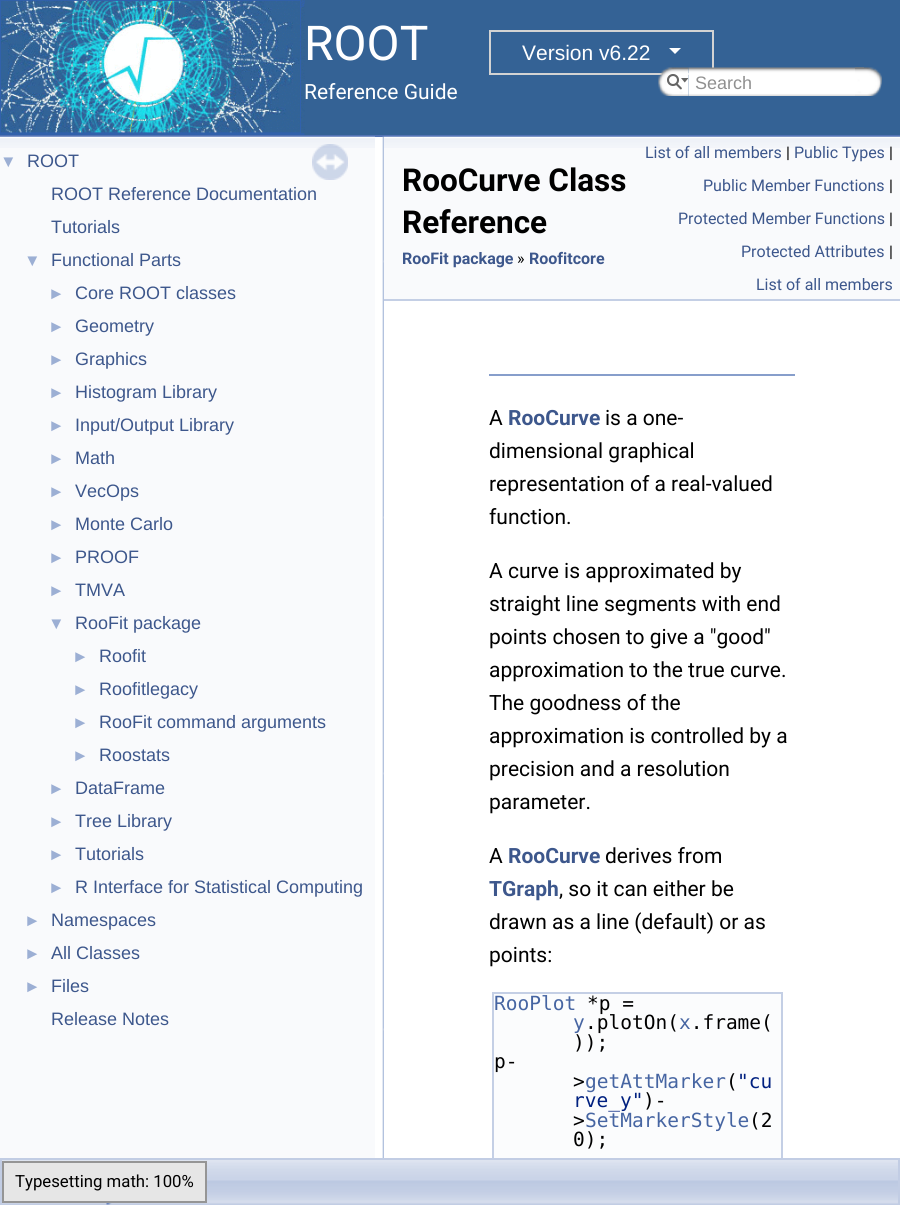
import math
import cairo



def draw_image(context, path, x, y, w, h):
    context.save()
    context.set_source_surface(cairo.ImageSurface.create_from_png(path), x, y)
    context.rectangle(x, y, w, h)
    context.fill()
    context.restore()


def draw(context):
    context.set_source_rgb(1, 1, 1)
    context.paint()
    context.set_source_rgb(83 / 255, 115 / 255, 180 / 255)
    context.rectangle(0, 135, 900, 2)
    context.fill()
    context.set_source_rgb(52 / 255, 98 / 255, 149 / 255)
    context.rectangle(304, 0, 596, 135)
    context.fill()
    draw_image(context, "images/1.png", 0, 0, 305, 135)
    context.rectangle(490, 31, 223, 43)
    context.set_source_rgb(211 / 255, 211 / 255, 211 / 255)
    context.stroke()
    context.set_source_rgb(1, 1, 1)
    context.new_path()
    context.move_to(669, 48)
    context.line_to(681, 48)
    context.line_to(675, 54)
    context.close_path()
    context.fill()
    draw_image(context, "images/2.png", 658, 67, 31, 29)
    draw_image(context, "images/3.png", 667, 74, 22, 16)
    draw_image(context, "images/4.png", 688, 67, 176, 29)
    draw_image(context, "images/5.png", 855, 67, 27, 29)
    context.set_source_rgb(249 / 255, 250 / 255, 252 / 255)
    context.rectangle(0, 148, 375, 1010)
    context.fill()
    draw_image(context, "images/6.png", 0, 136, 375, 12)
    draw_image(context, "images/7.png", 312, 144, 36, 36)
    draw_image(context, "images/8.png", 382, 136, 2, 1022)
    context.rectangle(384, 148, 516, 151)
    context.fill()
    draw_image(context, "images/9.png", 384, 136, 516, 12)
    context.set_source_rgb(196 / 255, 207 / 255, 229 / 255)
    context.rectangle(384, 299, 516, 2)
    context.fill()
    context.set_source_rgb(135 / 255, 158 / 255, 203 / 255)
    context.rectangle(489, 374, 306, 2)
    context.fill()
    context.set_source_rgb(251 / 255, 252 / 255, 253 / 255)
    context.rectangle(494, 994, 287, 164)
    context.fill()
    context.rectangle(493, 993, 289, 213)
    context.set_source_rgb(196 / 255, 207 / 255, 229 / 255)
    context.stroke()
    draw_image(context, "images/10.png", 2, 1160, 896, 44)
    context.rectangle(1, 1159, 898, 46)
    context.set_source_rgb(194 / 255, 205 / 255, 228 / 255)
    context.stroke()
    draw_image(context, "images/11.png", 106, 1203, 6, 2)
    context.set_source_rgb(230 / 255, 230 / 255, 230 / 255)
    context.rectangle(3, 1162, 203, 40)
    context.fill_preserve()
    context.set_source_rgb(149 / 255, 149 / 255, 149 / 255)
    context.stroke()
    context.select_font_face("Roboto")
    context.set_font_size(48)
    context.set_source_rgb(1, 1, 1)
    context.move_to(304, 60)
    context.show_text("ROOT")
    context.select_font_face("Liberation Sans")
    context.set_font_size(21)
    context.move_to(522, 60)
    context.show_text("Version v6.22")
    context.select_font_face("Roboto")
    context.move_to(304, 99)
    context.show_text("Reference Guide")
    context.select_font_face("Liberation Sans")
    context.set_font_size(18)
    context.set_source_rgb(144 / 255, 144 / 255, 144 / 255)
    context.move_to(695, 89)
    context.show_text("Search")
    context.set_font_size(16.75)
    context.set_source_rgb(156 / 255, 175 / 255, 212 / 255)
    context.move_to(0, 167)
    context.show_text("▼")
    context.set_font_size(18)
    context.set_source_rgb(61 / 255, 87 / 255, 140 / 255)
    context.move_to(27, 167)
    context.show_text("ROOT")
    context.move_to(51, 200)
    context.show_text("ROOT Reference Documentation")
    context.move_to(51, 233)
    context.show_text("Tutorials")
    context.set_font_size(16.75)
    context.set_source_rgb(156 / 255, 175 / 255, 212 / 255)
    context.move_to(24, 266)
    context.show_text("▼")
    context.set_font_size(18)
    context.set_source_rgb(61 / 255, 87 / 255, 140 / 255)
    context.move_to(51, 266)
    context.show_text("Functional Parts")
    context.set_font_size(16.75)
    context.set_source_rgb(156 / 255, 175 / 255, 212 / 255)
    context.move_to(48, 299)
    context.show_text("►")
    context.set_font_size(18)
    context.set_source_rgb(61 / 255, 87 / 255, 140 / 255)
    context.move_to(75, 299)
    context.show_text("Core ROOT classes")
    context.set_font_size(16.75)
    context.set_source_rgb(156 / 255, 175 / 255, 212 / 255)
    context.move_to(48, 332)
    context.show_text("►")
    context.set_font_size(18)
    context.set_source_rgb(61 / 255, 87 / 255, 140 / 255)
    context.move_to(75, 332)
    context.show_text("Geometry")
    context.set_font_size(16.75)
    context.set_source_rgb(156 / 255, 175 / 255, 212 / 255)
    context.move_to(48, 365)
    context.show_text("►")
    context.set_font_size(18)
    context.set_source_rgb(61 / 255, 87 / 255, 140 / 255)
    context.move_to(75, 365)
    context.show_text("Graphics")
    context.set_font_size(16.75)
    context.set_source_rgb(156 / 255, 175 / 255, 212 / 255)
    context.move_to(48, 398)
    context.show_text("►")
    context.set_font_size(18)
    context.set_source_rgb(61 / 255, 87 / 255, 140 / 255)
    context.move_to(75, 398)
    context.show_text("Histogram Library")
    context.set_font_size(16.75)
    context.set_source_rgb(156 / 255, 175 / 255, 212 / 255)
    context.move_to(48, 431)
    context.show_text("►")
    context.set_font_size(18)
    context.set_source_rgb(61 / 255, 87 / 255, 140 / 255)
    context.move_to(75, 431)
    context.show_text("Input/Output Library")
    context.set_font_size(16.75)
    context.set_source_rgb(156 / 255, 175 / 255, 212 / 255)
    context.move_to(48, 464)
    context.show_text("►")
    context.set_font_size(18)
    context.set_source_rgb(61 / 255, 87 / 255, 140 / 255)
    context.move_to(75, 464)
    context.show_text("Math")
    context.set_font_size(16.75)
    context.set_source_rgb(156 / 255, 175 / 255, 212 / 255)
    context.move_to(48, 497)
    context.show_text("►")
    context.set_font_size(18)
    context.set_source_rgb(61 / 255, 87 / 255, 140 / 255)
    context.move_to(75, 497)
    context.show_text("VecOps")
    context.set_font_size(16.75)
    context.set_source_rgb(156 / 255, 175 / 255, 212 / 255)
    context.move_to(48, 530)
    context.show_text("►")
    context.set_font_size(18)
    context.set_source_rgb(61 / 255, 87 / 255, 140 / 255)
    context.move_to(75, 530)
    context.show_text("Monte Carlo")
    context.set_font_size(16.75)
    context.set_source_rgb(156 / 255, 175 / 255, 212 / 255)
    context.move_to(48, 563)
    context.show_text("►")
    context.set_font_size(18)
    context.set_source_rgb(61 / 255, 87 / 255, 140 / 255)
    context.move_to(75, 563)
    context.show_text("PROOF")
    context.set_font_size(16.75)
    context.set_source_rgb(156 / 255, 175 / 255, 212 / 255)
    context.move_to(48, 596)
    context.show_text("►")
    context.set_font_size(18)
    context.set_source_rgb(61 / 255, 87 / 255, 140 / 255)
    context.move_to(75, 596)
    context.show_text("TMVA")
    context.set_font_size(16.75)
    context.set_source_rgb(156 / 255, 175 / 255, 212 / 255)
    context.move_to(48, 629)
    context.show_text("▼")
    context.set_font_size(18)
    context.set_source_rgb(61 / 255, 87 / 255, 140 / 255)
    context.move_to(75, 629)
    context.show_text("RooFit package")
    context.set_font_size(16.75)
    context.set_source_rgb(156 / 255, 175 / 255, 212 / 255)
    context.move_to(72, 662)
    context.show_text("►")
    context.set_font_size(18)
    context.set_source_rgb(61 / 255, 87 / 255, 140 / 255)
    context.move_to(99, 662)
    context.show_text("Roofit")
    context.set_font_size(16.75)
    context.set_source_rgb(156 / 255, 175 / 255, 212 / 255)
    context.move_to(72, 695)
    context.show_text("►")
    context.set_font_size(18)
    context.set_source_rgb(61 / 255, 87 / 255, 140 / 255)
    context.move_to(99, 695)
    context.show_text("Roofitlegacy")
    context.set_font_size(16.75)
    context.set_source_rgb(156 / 255, 175 / 255, 212 / 255)
    context.move_to(72, 728)
    context.show_text("►")
    context.set_font_size(18)
    context.set_source_rgb(61 / 255, 87 / 255, 140 / 255)
    context.move_to(99, 728)
    context.show_text("RooFit command arguments")
    context.set_font_size(16.75)
    context.set_source_rgb(156 / 255, 175 / 255, 212 / 255)
    context.move_to(72, 761)
    context.show_text("►")
    context.set_font_size(18)
    context.set_source_rgb(61 / 255, 87 / 255, 140 / 255)
    context.move_to(99, 761)
    context.show_text("Roostats")
    context.set_font_size(16.75)
    context.set_source_rgb(156 / 255, 175 / 255, 212 / 255)
    context.move_to(48, 794)
    context.show_text("►")
    context.set_font_size(18)
    context.set_source_rgb(61 / 255, 87 / 255, 140 / 255)
    context.move_to(75, 794)
    context.show_text("DataFrame")
    context.set_font_size(16.75)
    context.set_source_rgb(156 / 255, 175 / 255, 212 / 255)
    context.move_to(48, 827)
    context.show_text("►")
    context.set_font_size(18)
    context.set_source_rgb(61 / 255, 87 / 255, 140 / 255)
    context.move_to(75, 827)
    context.show_text("Tree Library")
    context.set_font_size(16.75)
    context.set_source_rgb(156 / 255, 175 / 255, 212 / 255)
    context.move_to(48, 860)
    context.show_text("►")
    context.set_font_size(18)
    context.set_source_rgb(61 / 255, 87 / 255, 140 / 255)
    context.move_to(75, 860)
    context.show_text("Tutorials")
    context.set_font_size(16.75)
    context.set_source_rgb(156 / 255, 175 / 255, 212 / 255)
    context.move_to(48, 893)
    context.show_text("►")
    context.set_font_size(18)
    context.set_source_rgb(61 / 255, 87 / 255, 140 / 255)
    context.move_to(75, 893)
    context.show_text("R Interface for Statistical Computing")
    context.set_font_size(16.75)
    context.set_source_rgb(156 / 255, 175 / 255, 212 / 255)
    context.move_to(24, 926)
    context.show_text("►")
    context.set_font_size(18)
    context.set_source_rgb(61 / 255, 87 / 255, 140 / 255)
    context.move_to(51, 926)
    context.show_text("Namespaces")
    context.set_font_size(16.75)
    context.set_source_rgb(156 / 255, 175 / 255, 212 / 255)
    context.move_to(24, 959)
    context.show_text("►")
    context.set_font_size(18)
    context.set_source_rgb(61 / 255, 87 / 255, 140 / 255)
    context.move_to(51, 959)
    context.show_text("All Classes")
    context.set_font_size(16.75)
    context.set_source_rgb(156 / 255, 175 / 255, 212 / 255)
    context.move_to(24, 992)
    context.show_text("►")
    context.set_font_size(18)
    context.set_source_rgb(61 / 255, 87 / 255, 140 / 255)
    context.move_to(51, 992)
    context.show_text("Files")
    context.move_to(51, 1025)
    context.show_text("Release Notes")
    context.select_font_face("Roboto", cairo.FontSlant.NORMAL, cairo.FontWeight.BOLD)
    context.set_font_size(31.5)
    context.set_source_rgb(0, 0, 0)
    context.move_to(402, 191)
    context.show_text("RooCurve Class")
    context.move_to(402, 233)
    context.show_text("Reference")
    context.set_font_size(16)
    context.set_source_rgb(61 / 255, 87 / 255, 140 / 255)
    context.move_to(402, 264)
    context.show_text("RooFit package")
    context.select_font_face("Roboto")
    context.set_source_rgb(0, 0, 0)
    context.move_to(517, 264)
    context.show_text("»")
    context.select_font_face("Roboto", cairo.FontSlant.NORMAL, cairo.FontWeight.BOLD)
    context.set_source_rgb(61 / 255, 87 / 255, 140 / 255)
    context.move_to(529, 264)
    context.show_text("Roofitcore")
    context.select_font_face("Roboto")
    context.move_to(645, 158)
    context.show_text("List of all members")
    context.set_source_rgb(0, 0, 0)
    context.move_to(786, 158)
    context.show_text("|")
    context.set_source_rgb(61 / 255, 87 / 255, 140 / 255)
    context.move_to(794, 158)
    context.show_text("Public Types")
    context.set_source_rgb(0, 0, 0)
    context.move_to(889, 158)
    context.show_text("|")
    context.set_source_rgb(61 / 255, 87 / 255, 140 / 255)
    context.move_to(703, 191)
    context.show_text("Public Member Functions")
    context.set_source_rgb(0, 0, 0)
    context.move_to(889, 191)
    context.show_text("|")
    context.set_source_rgb(61 / 255, 87 / 255, 140 / 255)
    context.move_to(678, 224)
    context.show_text("Protected Member Functions")
    context.set_source_rgb(0, 0, 0)
    context.move_to(889, 224)
    context.show_text("|")
    context.set_source_rgb(61 / 255, 87 / 255, 140 / 255)
    context.move_to(741, 257)
    context.show_text("Protected Attributes")
    context.set_source_rgb(0, 0, 0)
    context.move_to(889, 257)
    context.show_text("|")
    context.set_source_rgb(61 / 255, 87 / 255, 140 / 255)
    context.move_to(756, 290)
    context.show_text("List of all members")
    context.set_font_size(21)
    context.set_source_rgb(0, 0, 0)
    context.move_to(489, 425)
    context.show_text("A")
    context.select_font_face("Roboto", cairo.FontSlant.NORMAL, cairo.FontWeight.BOLD)
    context.set_source_rgb(61 / 255, 87 / 255, 140 / 255)
    context.move_to(508, 425)
    context.show_text("RooCurve")
    context.select_font_face("Roboto")
    context.set_source_rgb(0, 0, 0)
    context.move_to(605, 425)
    context.show_text("is a one-")
    context.move_to(489, 458)
    context.show_text("dimensional graphical")
    context.move_to(489, 491)
    context.show_text("representation of a real-valued")
    context.move_to(489, 524)
    context.show_text("function.")
    context.move_to(489, 578)
    context.show_text("A curve is approximated by")
    context.move_to(489, 611)
    context.show_text("straight line segments with end")
    context.move_to(489, 644)
    context.show_text("points chosen to give a \"good\"")
    context.move_to(489, 677)
    context.show_text("approximation to the true curve.")
    context.move_to(489, 710)
    context.show_text("The goodness of the")
    context.move_to(489, 743)
    context.show_text("approximation is controlled by a")
    context.move_to(489, 776)
    context.show_text("precision and a resolution")
    context.move_to(489, 809)
    context.show_text("parameter.")
    context.move_to(489, 863)
    context.show_text("A")
    context.select_font_face("Roboto", cairo.FontSlant.NORMAL, cairo.FontWeight.BOLD)
    context.set_source_rgb(61 / 255, 87 / 255, 140 / 255)
    context.move_to(508, 863)
    context.show_text("RooCurve")
    context.select_font_face("Roboto")
    context.set_source_rgb(0, 0, 0)
    context.move_to(605, 863)
    context.show_text("derives from")
    context.select_font_face("Roboto", cairo.FontSlant.NORMAL, cairo.FontWeight.BOLD)
    context.set_source_rgb(61 / 255, 87 / 255, 140 / 255)
    context.move_to(489, 896)
    context.show_text("TGraph")
    context.select_font_face("Roboto")
    context.set_source_rgb(0, 0, 0)
    context.move_to(559, 896)
    context.show_text(", so it can either be")
    context.move_to(489, 929)
    context.show_text("drawn as a line (default) or as")
    context.move_to(489, 962)
    context.show_text("points:")
    context.select_font_face("DejaVu Sans Mono")
    context.set_font_size(19.5)
    context.set_source_rgb(70 / 255, 101 / 255, 162 / 255)
    context.move_to(494, 1010)
    context.show_text("RooPlot")
    context.set_source_rgb(0, 0, 0)
    context.move_to(587, 1010)
    context.show_text("*p =")
    context.set_source_rgb(70 / 255, 101 / 255, 162 / 255)
    context.move_to(573, 1029)
    context.show_text("y")
    context.set_source_rgb(0, 0, 0)
    context.move_to(585, 1029)
    context.show_text(".plotOn( .frame(")
    context.set_source_rgb(70 / 255, 101 / 255, 162 / 255)
    context.move_to(679, 1029)
    context.show_text("x")
    context.set_source_rgb(0, 0, 0)
    context.move_to(573, 1049)
    context.show_text("));")
    context.move_to(494, 1068)
    context.show_text("p-")
    context.move_to(573, 1088)
    context.show_text(">")
    context.set_source_rgb(70 / 255, 101 / 255, 162 / 255)
    context.move_to(585, 1088)
    context.show_text("getAttMarker")
    context.set_source_rgb(0, 0, 0)
    context.move_to(726, 1088)
    context.show_text("(")
    context.set_source_rgb(0, 32 / 255, 128 / 255)
    context.move_to(737, 1088)
    context.show_text("\"cu")
    context.move_to(573, 1107)
    context.show_text("rve_y\"")
    context.set_source_rgb(0, 0, 0)
    context.move_to(643, 1107)
    context.show_text(")-")
    context.move_to(573, 1127)
    context.show_text(">")
    context.set_source_rgb(70 / 255, 101 / 255, 162 / 255)
    context.move_to(585, 1127)
    context.show_text("SetMarkerStyle")
    context.set_source_rgb(0, 0, 0)
    context.move_to(749, 1127)
    context.show_text("(2")
    context.move_to(573, 1146)
    context.show_text("0);")
    context.select_font_face("Roboto")
    context.set_font_size(16.75)
    context.move_to(15, 1187)
    context.show_text("Typesetting math: 100%")


surface = cairo.ImageSurface(cairo.Format.RGB24, 900, 1205)
context = cairo.Context(surface)
options = cairo.FontOptions()
options.set_hint_metrics(cairo.HintMetrics.OFF)
options.set_hint_style(cairo.HintStyle.NONE)
context.set_font_options(options)
context.set_miter_limit(4)
draw(context)
surface.write_to_png("out.png")
